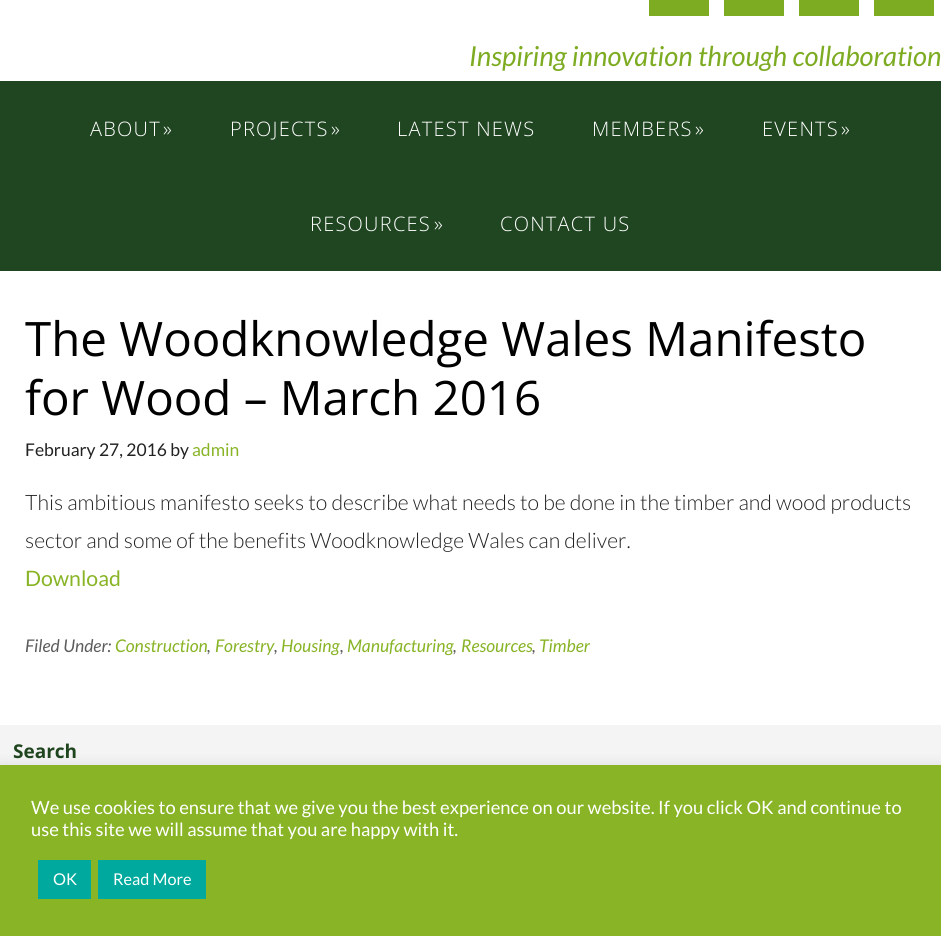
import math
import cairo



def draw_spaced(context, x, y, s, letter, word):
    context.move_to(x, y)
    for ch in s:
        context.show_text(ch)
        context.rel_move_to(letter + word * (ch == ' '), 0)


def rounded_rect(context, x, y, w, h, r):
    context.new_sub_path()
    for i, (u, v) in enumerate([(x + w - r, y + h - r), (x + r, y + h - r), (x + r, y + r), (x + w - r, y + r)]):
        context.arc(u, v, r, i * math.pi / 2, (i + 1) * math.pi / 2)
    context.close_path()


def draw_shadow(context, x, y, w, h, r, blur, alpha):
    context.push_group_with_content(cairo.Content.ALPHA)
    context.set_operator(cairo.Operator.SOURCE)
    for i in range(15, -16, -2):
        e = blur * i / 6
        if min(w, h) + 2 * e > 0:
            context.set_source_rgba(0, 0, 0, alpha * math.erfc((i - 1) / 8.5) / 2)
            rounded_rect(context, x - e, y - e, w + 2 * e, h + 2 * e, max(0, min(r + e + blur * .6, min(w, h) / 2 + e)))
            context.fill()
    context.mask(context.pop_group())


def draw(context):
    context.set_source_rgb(1, 1, 1)
    context.paint()
    context.set_source_rgb(125 / 255, 171 / 255, 34 / 255)
    context.rectangle(649, 0, 60, 16)
    context.fill()
    context.rectangle(724, 0, 60, 16)
    context.fill()
    context.rectangle(799, 0, 60, 16)
    context.fill()
    context.rectangle(874, 0, 60, 16)
    context.fill()
    context.set_source_rgb(31 / 255, 69 / 255, 33 / 255)
    context.rectangle(0, 81, 941, 190)
    context.fill()
    context.set_source_rgb(244 / 255, 244 / 255, 244 / 255)
    context.rectangle(0, 725, 941, 40)
    context.fill()
    context.set_source_rgb(172 / 255, 171 / 255, 171 / 255)
    draw_shadow(context, 0, 764, 941, 171, 0, 6, 0.3)
    context.set_source_rgb(136 / 255, 180 / 255, 38 / 255)
    context.rectangle(0, 765, 941, 171)
    context.fill()
    context.set_source_rgb(0, 169 / 255, 157 / 255)
    context.rectangle(38, 860, 53, 39)
    context.fill()
    context.rectangle(98, 860, 108, 39)
    context.fill()
    context.select_font_face("Lato", cairo.FontSlant.ITALIC)
    context.set_font_size(27.5)
    context.set_source_rgb(125 / 255, 171 / 255, 34 / 255)
    context.move_to(469, 66)
    context.show_text("Inspiring innovation through collaboration")
    context.select_font_face("Open Sans Light")
    context.set_font_size(20)
    context.set_source_rgb(1, 1, 1)
    draw_spaced(context, 90, 136, "ABOUT", 1.25, 0)
    draw_spaced(context, 163, 136, "»", 1.25, 0)
    draw_spaced(context, 230, 136, "PROJECTS", 1.25, 0)
    draw_spaced(context, 331, 136, "»", 1.25, 0)
    draw_spaced(context, 397, 136, "LATEST NEWS", 1.25, 0)
    draw_spaced(context, 592, 136, "MEMBERS", 1.25, 0)
    draw_spaced(context, 695, 136, "»", 1.25, 0)
    draw_spaced(context, 762, 136, "EVENTS", 1.25, 0)
    draw_spaced(context, 841, 136, "»", 1.25, 0)
    draw_spaced(context, 310, 231, "RESOURCES", 1.25, 0)
    draw_spaced(context, 434, 231, "»", 1.25, 0)
    draw_spaced(context, 500, 231, "CONTACT US", 1.25, 0)
    context.select_font_face("Open Sans")
    context.set_font_size(47.5)
    context.set_source_rgb(0, 0, 0)
    context.move_to(25, 356)
    context.show_text("The Woodknowledge Wales Manifesto")
    context.move_to(25, 415)
    context.show_text("for Wood – March 2016")
    context.select_font_face("Lato")
    context.set_font_size(17.5)
    context.set_source_rgb(34 / 255, 34 / 255, 34 / 255)
    context.move_to(25, 456)
    context.show_text("February 27, 2016 by")
    context.set_source_rgb(136 / 255, 180 / 255, 38 / 255)
    context.move_to(192, 456)
    context.show_text("admin")
    context.select_font_face("Lato Light")
    context.set_font_size(21.25)
    context.set_source_rgb(34 / 255, 34 / 255, 34 / 255)
    context.move_to(25, 510)
    context.show_text("This ambitious manifesto seeks to describe what needs to be done in the timber and wood products")
    context.move_to(25, 548)
    context.show_text("sector and some of the benefits Woodknowledge Wales can deliver.")
    context.select_font_face("Lato")
    context.set_source_rgb(136 / 255, 180 / 255, 38 / 255)
    context.move_to(25, 586)
    context.show_text("Download")
    context.select_font_face("Lato", cairo.FontSlant.ITALIC)
    context.set_font_size(17.5)
    context.set_source_rgb(93 / 255, 93 / 255, 93 / 255)
    context.move_to(25, 652)
    context.show_text("Filed Under:")
    context.set_source_rgb(136 / 255, 180 / 255, 38 / 255)
    context.move_to(115, 652)
    context.show_text("Construction")
    context.set_source_rgb(93 / 255, 93 / 255, 93 / 255)
    context.move_to(207, 652)
    context.show_text(",")
    context.set_source_rgb(136 / 255, 180 / 255, 38 / 255)
    context.move_to(215, 652)
    context.show_text("Forestry")
    context.set_source_rgb(93 / 255, 93 / 255, 93 / 255)
    context.move_to(274, 652)
    context.show_text(",")
    context.set_source_rgb(136 / 255, 180 / 255, 38 / 255)
    context.move_to(281, 652)
    context.show_text("Housing")
    context.set_source_rgb(93 / 255, 93 / 255, 93 / 255)
    context.move_to(340, 652)
    context.show_text(",")
    context.set_source_rgb(136 / 255, 180 / 255, 38 / 255)
    context.move_to(347, 652)
    context.show_text("Manufacturing")
    context.set_source_rgb(93 / 255, 93 / 255, 93 / 255)
    context.move_to(453, 652)
    context.show_text(",")
    context.set_source_rgb(136 / 255, 180 / 255, 38 / 255)
    context.move_to(461, 652)
    context.show_text("Resources")
    context.set_source_rgb(93 / 255, 93 / 255, 93 / 255)
    context.move_to(532, 652)
    context.show_text(",")
    context.set_source_rgb(136 / 255, 180 / 255, 38 / 255)
    context.move_to(539, 652)
    context.show_text("Timber")
    context.select_font_face("Open Sans", cairo.FontSlant.NORMAL, cairo.FontWeight.BOLD)
    context.set_font_size(19)
    context.set_source_rgb(31 / 255, 69 / 255, 31 / 255)
    context.move_to(13, 758)
    context.show_text("Search")
    context.select_font_face("Lato")
    context.set_font_size(18.35)
    context.set_source_rgb(1, 1, 1)
    context.move_to(31, 814)
    context.show_text("We use cookies to ensure that we give you the best experience on our website. If you click OK and continue to")
    context.move_to(31, 836)
    context.show_text("use this site we will assume that you are happy with it.")
    context.set_font_size(16.25)
    context.move_to(53, 885)
    context.show_text("OK")
    context.move_to(113, 885)
    context.show_text("Read More")


surface = cairo.ImageSurface(cairo.Format.RGB24, 941, 936)
context = cairo.Context(surface)
options = cairo.FontOptions()
options.set_hint_metrics(cairo.HintMetrics.OFF)
options.set_hint_style(cairo.HintStyle.NONE)
context.set_font_options(options)
context.set_miter_limit(4)
draw(context)
surface.write_to_png("out.png")
